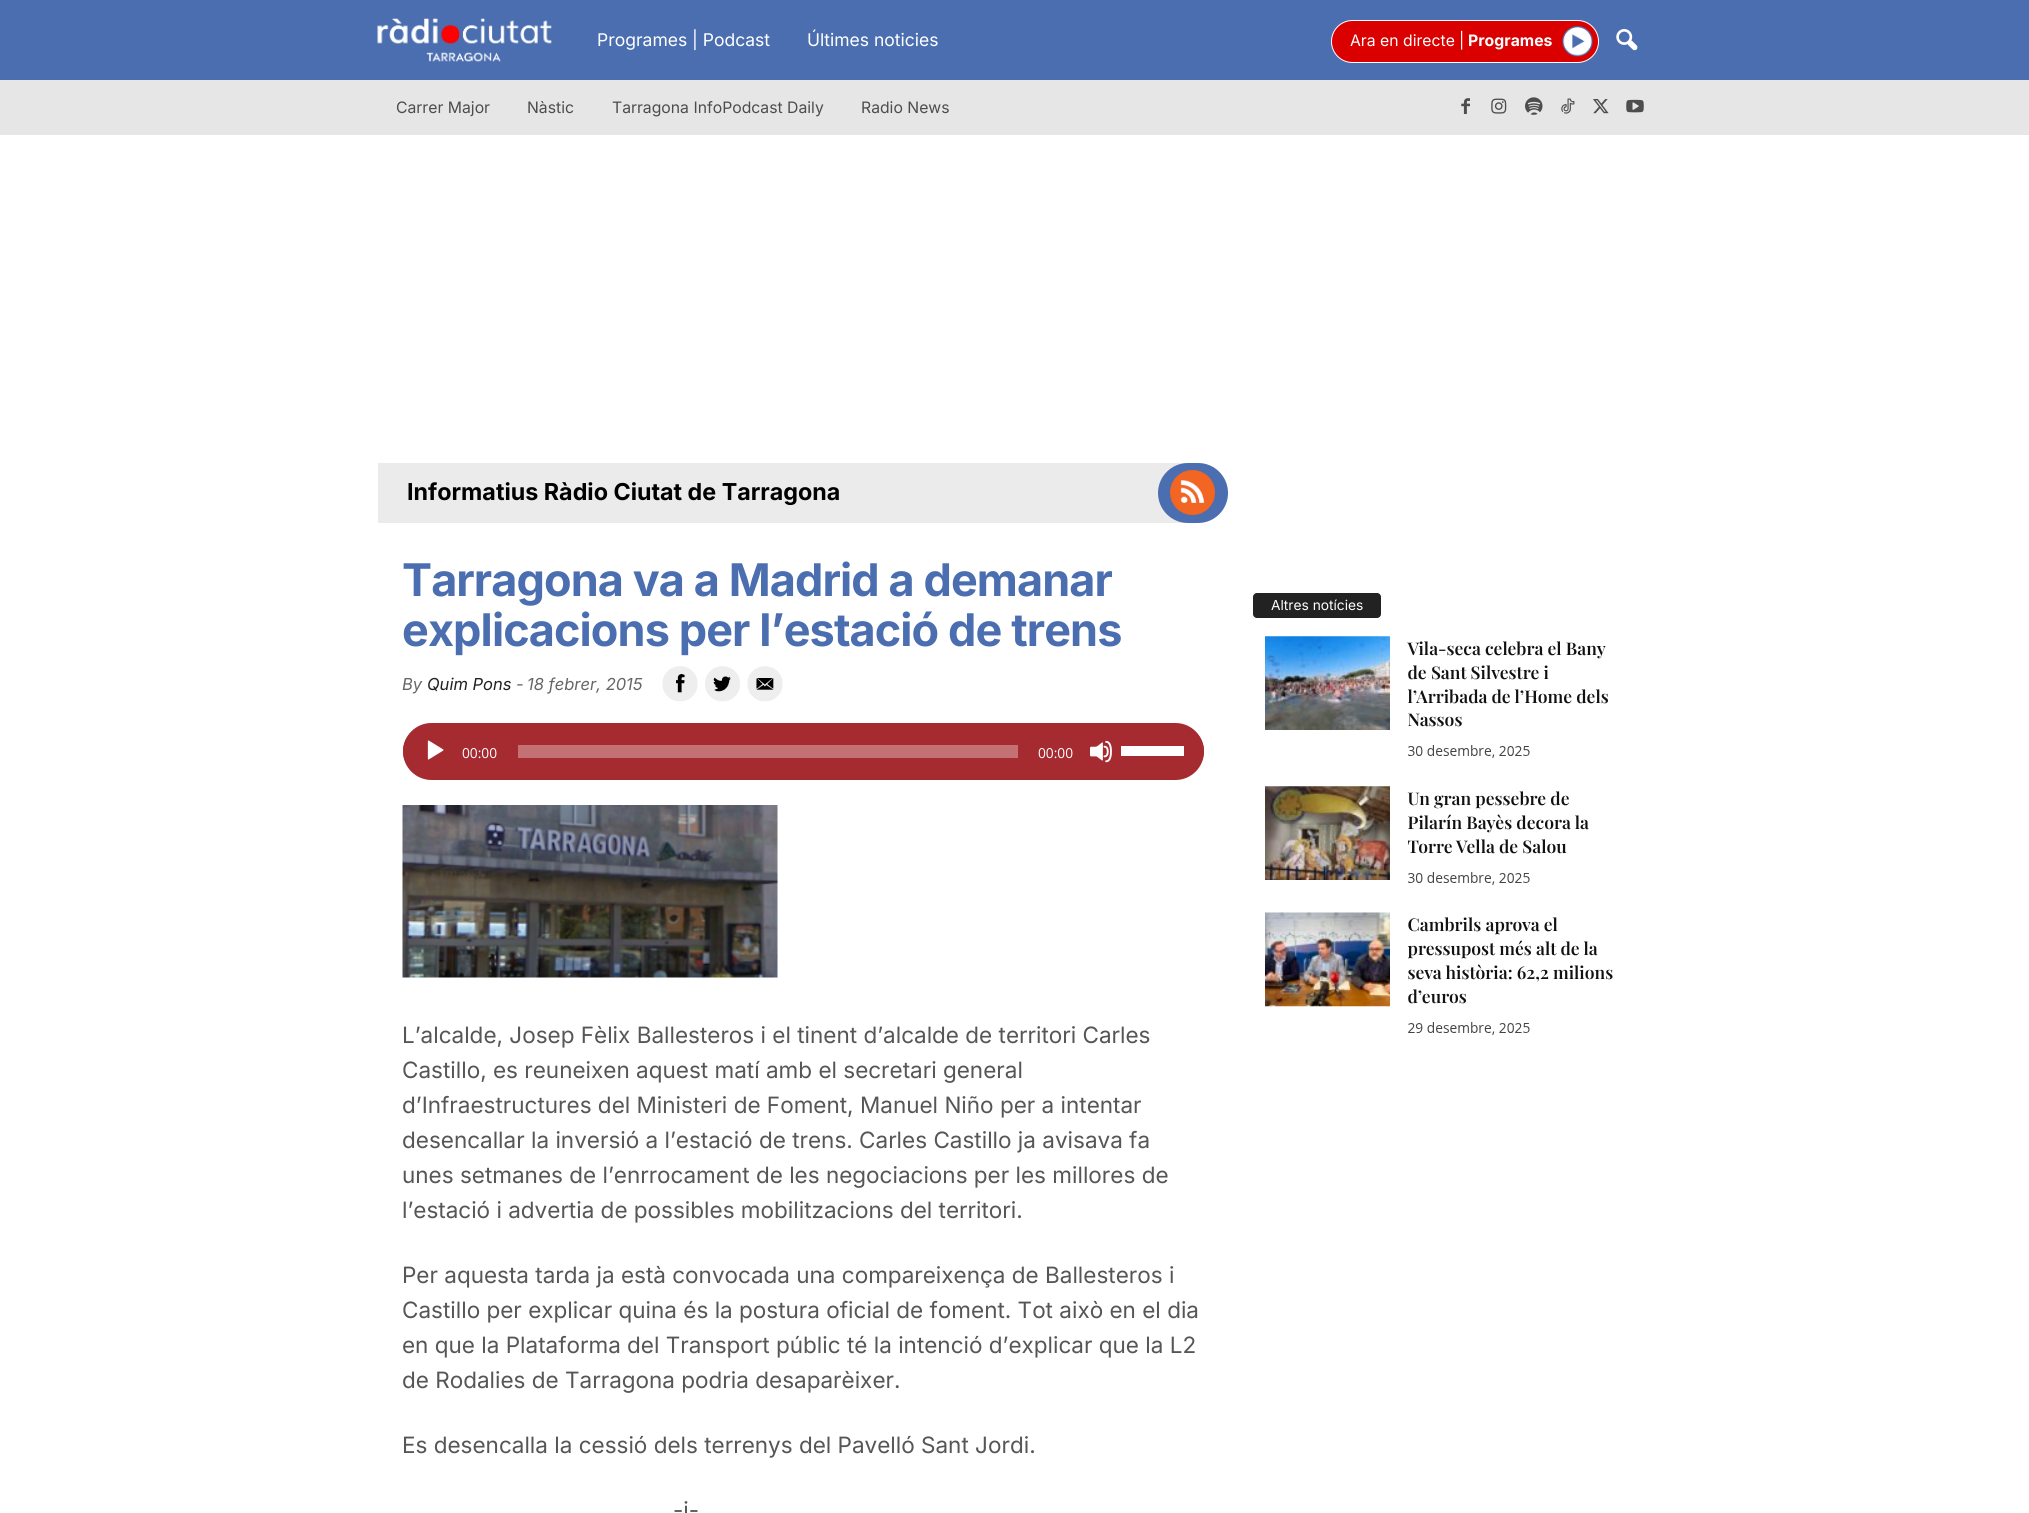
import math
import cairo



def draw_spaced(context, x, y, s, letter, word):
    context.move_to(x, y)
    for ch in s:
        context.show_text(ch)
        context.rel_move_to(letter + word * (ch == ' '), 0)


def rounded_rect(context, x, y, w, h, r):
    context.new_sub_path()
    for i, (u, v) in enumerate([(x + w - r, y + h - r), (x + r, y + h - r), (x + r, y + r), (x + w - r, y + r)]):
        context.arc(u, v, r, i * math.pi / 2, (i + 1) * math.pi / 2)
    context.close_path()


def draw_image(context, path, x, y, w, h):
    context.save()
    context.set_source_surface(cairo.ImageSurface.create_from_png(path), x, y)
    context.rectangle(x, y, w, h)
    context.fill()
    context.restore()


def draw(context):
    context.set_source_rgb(1, 1, 1)
    context.paint()
    context.set_source_rgb(75 / 255, 110 / 255, 176 / 255)
    context.rectangle(0, 0, 2029, 80)
    context.fill()
    draw_image(context, "images/1.png", 377, 18, 175, 44)
    context.set_source_rgb(218 / 255, 0, 0)
    rounded_rect(context, 1331.5, 20.5, 267, 42, 21)
    context.fill_preserve()
    context.set_source_rgb(1, 1, 1)
    context.set_line_width(1)
    context.stroke()
    draw_image(context, "images/2.png", 1562, 26, 31, 31)
    draw_image(context, "images/3.png", 1616, 29, 22, 22)
    context.set_source_rgb(230 / 255, 230 / 255, 230 / 255)
    context.rectangle(0, 80, 2029, 55)
    context.fill()
    draw_image(context, "images/4.png", 1461, 98, 9, 16)
    draw_image(context, "images/5.png", 1491, 98, 16, 16)
    draw_image(context, "images/6.png", 1525, 97, 18, 18)
    draw_image(context, "images/7.png", 1561, 98, 14, 16)
    draw_image(context, "images/8.png", 1593, 99, 16, 15)
    draw_image(context, "images/9.png", 1626, 99, 18, 14)
    context.set_source_rgb(235 / 255, 235 / 255, 235 / 255)
    context.new_path()
    context.move_to(378, 463)
    context.line_to(1198, 463)
    context.curve_to(1214.5, 463, 1228, 476.5, 1228, 493)
    context.curve_to(1228, 509.5, 1214.5, 523, 1198, 523)
    context.line_to(378, 523)
    context.close_path()
    context.fill()
    context.set_source_rgb(75 / 255, 110 / 255, 176 / 255)
    rounded_rect(context, 1158, 463, 70, 60, 30)
    context.fill()
    draw_image(context, "images/10.png", 1170, 470, 45, 45)
    draw_image(context, "images/11.png", 662, 666, 36, 36)
    draw_image(context, "images/12.png", 705, 666, 35, 36)
    draw_image(context, "images/13.png", 747, 666, 36, 36)
    context.set_source_rgb(165 / 255, 43 / 255, 49 / 255)
    rounded_rect(context, 403, 723, 801, 57, 28.5)
    context.fill()
    rounded_rect(context, 403, 726, 801, 50, 25)
    context.fill()
    draw_image(context, "images/14.png", 427, 740, 17, 20)
    context.set_source_rgb(195 / 255, 113 / 255, 117 / 255)
    context.rectangle(518, 745, 500, 13)
    context.fill()
    draw_image(context, "images/15.png", 1090, 740, 22, 23)
    context.set_source_rgb(1, 1, 1)
    context.rectangle(1121, 746, 63, 10)
    context.fill()
    draw_image(context, "images/16.png", 402, 805, 376, 173)
    context.set_source_rgb(34 / 255, 34 / 255, 34 / 255)
    rounded_rect(context, 1253, 593, 128, 25, 4)
    context.fill()
    draw_image(context, "images/17.png", 1265, 636, 348, 399)
    context.select_font_face("Inter")
    context.set_font_size(17.5)
    context.set_source_rgb(1, 1, 1)
    context.move_to(597, 46)
    context.show_text("Programes | Podcast")
    context.move_to(807, 46)
    context.show_text("Últimes noticies")
    context.set_font_size(15.75)
    context.move_to(1350, 46)
    context.show_text("Ara en directe")
    context.move_to(1459, 46)
    context.show_text("|")
    context.select_font_face("Inter", cairo.FontSlant.NORMAL, cairo.FontWeight.BOLD)
    context.move_to(1468, 46)
    context.show_text("Programes")
    context.select_font_face("Inter")
    context.set_source_rgb(77 / 255, 77 / 255, 77 / 255)
    context.move_to(396, 113)
    context.show_text("Carrer Major")
    context.move_to(527, 113)
    context.show_text("Nàstic")
    context.move_to(612, 113)
    context.show_text("Tarragona InfoPodcast Daily")
    context.move_to(861, 113)
    context.show_text("Radio News")
    context.select_font_face("Inter", cairo.FontSlant.NORMAL, cairo.FontWeight.BOLD)
    context.set_font_size(23.3)
    context.set_source_rgb(0, 0, 0)
    context.move_to(407, 500)
    context.show_text("Informatius Ràdio Ciutat de Tarragona")
    context.set_font_size(45)
    context.set_source_rgb(75 / 255, 110 / 255, 176 / 255)
    draw_spaced(context, 402, 596, "Tarragona va a Madrid a demanar", -0.9, 0)
    draw_spaced(context, 402, 646, "explicacions per l’estació de trens", -0.9, 0)
    context.select_font_face("Inter", cairo.FontSlant.ITALIC)
    context.set_font_size(16.5)
    context.set_source_rgb(102 / 255, 102 / 255, 102 / 255)
    context.move_to(402, 690)
    context.show_text("By")
    context.set_source_rgb(34 / 255, 34 / 255, 34 / 255)
    context.move_to(427, 690)
    context.show_text("Quim Pons")
    context.set_source_rgb(102 / 255, 102 / 255, 102 / 255)
    context.move_to(516, 690)
    context.show_text("-")
    context.move_to(527, 690)
    context.show_text("18 febrer, 2015")
    context.select_font_face("Open Sans")
    context.set_font_size(13.75)
    context.set_source_rgb(1, 1, 1)
    context.move_to(462, 758)
    context.show_text("00:00")
    context.move_to(1038, 758)
    context.show_text("00:00")
    context.select_font_face("Inter")
    context.set_font_size(22.5)
    context.set_source_rgb(86 / 255, 86 / 255, 86 / 255)
    context.move_to(402, 1043)
    context.show_text("L’alcalde, Josep Fèlix Ballesteros i el tinent d’alcalde de territori Carles")
    context.move_to(402, 1078)
    context.show_text("Castillo, es reuneixen aquest matí amb el secretari general")
    context.move_to(402, 1113)
    context.show_text("d’Infraestructures del Ministeri de Foment, Manuel Niño per a intentar")
    context.move_to(402, 1148)
    context.show_text("desencallar la inversió a l’estació de trens. Carles Castillo ja avisava fa")
    context.move_to(402, 1183)
    context.show_text("unes setmanes de l’enrrocament de les negociacions per les millores de")
    context.move_to(402, 1218)
    context.show_text("l’estació i advertia de possibles mobilitzacions del territori.")
    context.move_to(402, 1283)
    context.show_text("Per aquesta tarda ja està convocada una compareixença de Ballesteros i")
    context.move_to(402, 1318)
    context.show_text("Castillo per explicar quina és la postura oficial de foment. Tot això en el dia")
    context.move_to(402, 1353)
    context.show_text("en que la Plataforma del Transport públic té la intenció d’explicar que la L2")
    context.move_to(402, 1388)
    context.show_text("de Rodalies de Tarragona podria desaparèixer.")
    context.move_to(402, 1453)
    context.show_text("Es desencalla la cessió dels terrenys del Pavelló Sant Jordi.")
    context.move_to(673, 1518)
    context.show_text("-i-")
    context.set_font_size(13.75)
    context.set_source_rgb(1, 1, 1)
    context.move_to(1271, 610)
    context.show_text("Altres notícies")


surface = cairo.ImageSurface(cairo.Format.RGB24, 2029, 1513)
context = cairo.Context(surface)
options = cairo.FontOptions()
options.set_hint_metrics(cairo.HintMetrics.OFF)
options.set_hint_style(cairo.HintStyle.NONE)
context.set_font_options(options)
context.set_miter_limit(4)
draw(context)
surface.write_to_png("out.png")
